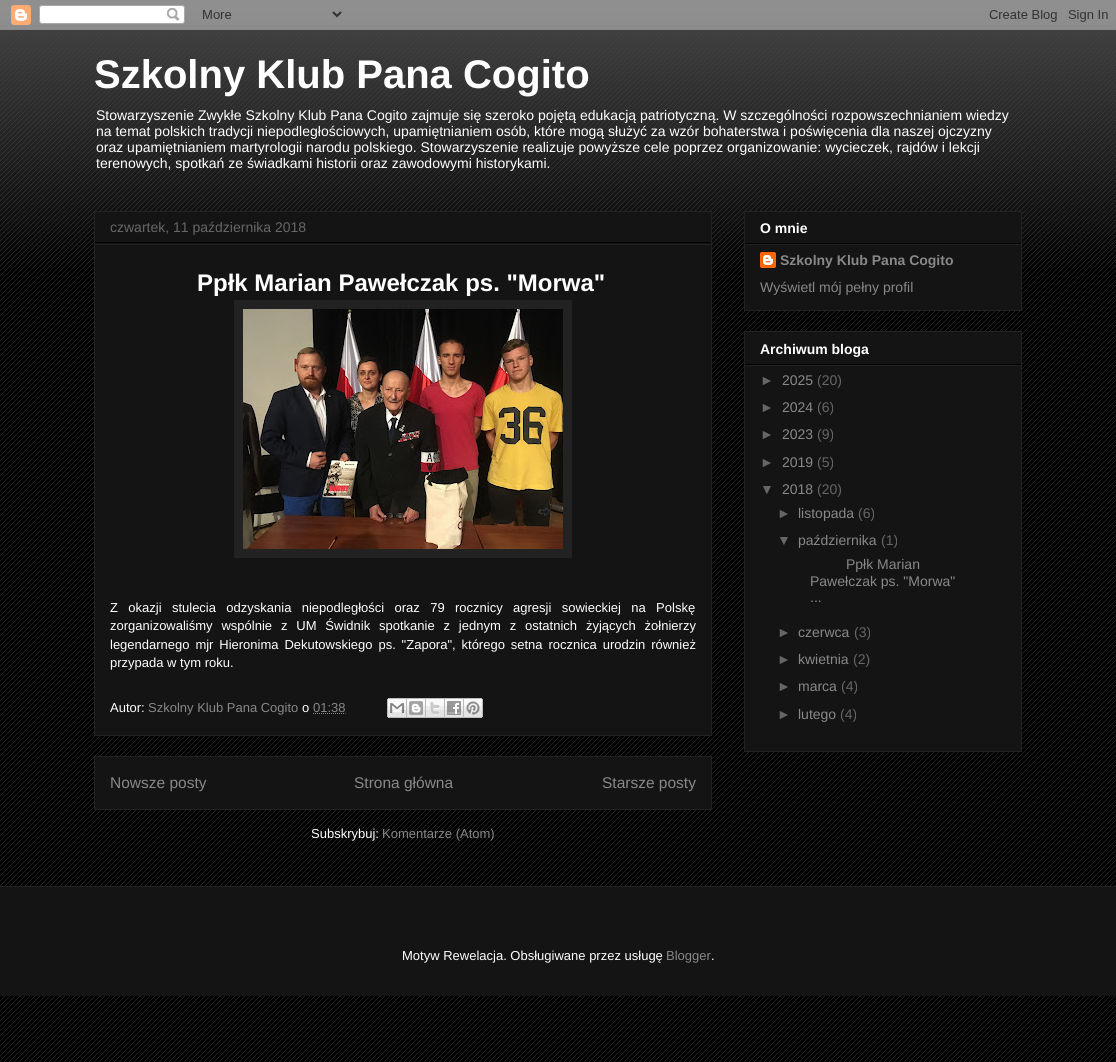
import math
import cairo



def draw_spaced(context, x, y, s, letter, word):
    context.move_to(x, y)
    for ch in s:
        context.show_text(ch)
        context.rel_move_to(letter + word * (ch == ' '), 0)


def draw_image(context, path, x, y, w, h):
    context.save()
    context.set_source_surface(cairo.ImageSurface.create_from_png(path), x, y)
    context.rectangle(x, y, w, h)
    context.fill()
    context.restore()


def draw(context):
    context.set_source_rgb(0, 0, 0)
    context.paint()
    draw_image(context, "images/1.png", 0, 13, 1116, 1049)
    draw_image(context, "images/2.png", 0, 0, 1116, 268)
    draw_image(context, "images/3.png", 0, 0, 1116, 30)
    context.set_source_rgb(20 / 255, 20 / 255, 20 / 255)
    context.rectangle(94.5, 211.5, 617, 524)
    context.fill_preserve()
    context.set_source_rgb(34 / 255, 34 / 255, 34 / 255)
    context.set_line_width(1)
    context.stroke()
    context.set_source_rgb(0, 0, 0)
    context.rectangle(95, 242, 616, 1)
    context.fill()
    context.set_source_rgb(34 / 255, 34 / 255, 34 / 255)
    context.rectangle(95, 244, 616, 1)
    context.fill()
    context.rectangle(234, 300, 338, 258)
    context.fill()
    draw_image(context, "images/4.png", 243, 309, 320, 240)
    context.new_path()
    context.move_to(313, 713.5)
    context.line_to(345.5, 713.5)
    context.set_source_rgb(136 / 255, 136 / 255, 136 / 255)
    context.set_dash([1, 1])
    context.stroke()
    draw_image(context, "images/5.png", 387, 698, 20, 20)
    draw_image(context, "images/6.png", 407, 698, 19, 20)
    draw_image(context, "images/7.png", 426, 698, 19, 20)
    draw_image(context, "images/8.png", 445, 698, 19, 20)
    draw_image(context, "images/9.png", 464, 698, 19, 20)
    context.set_source_rgb(20 / 255, 20 / 255, 20 / 255)
    context.rectangle(94.5, 756.5, 617, 53)
    context.fill_preserve()
    context.set_source_rgb(34 / 255, 34 / 255, 34 / 255)
    context.set_dash([])
    context.stroke()
    context.set_source_rgb(20 / 255, 20 / 255, 20 / 255)
    context.rectangle(744.5, 211.5, 277, 99)
    context.fill_preserve()
    context.set_source_rgb(34 / 255, 34 / 255, 34 / 255)
    context.stroke()
    context.set_source_rgb(0, 0, 0)
    context.rectangle(745, 243, 276, 1)
    context.fill()
    context.set_source_rgb(34 / 255, 34 / 255, 34 / 255)
    context.rectangle(745, 244, 276, 1)
    context.fill()
    draw_image(context, "images/10.png", 760, 252, 16, 16)
    context.set_source_rgb(20 / 255, 20 / 255, 20 / 255)
    context.rectangle(744.5, 331.5, 277, 420)
    context.fill_preserve()
    context.set_source_rgb(34 / 255, 34 / 255, 34 / 255)
    context.stroke()
    context.set_source_rgb(0, 0, 0)
    context.rectangle(745, 364, 276, 1)
    context.fill()
    context.set_source_rgb(34 / 255, 34 / 255, 34 / 255)
    context.rectangle(745, 365, 276, 1)
    context.fill()
    context.set_source_rgb(20 / 255, 20 / 255, 20 / 255)
    context.rectangle(0, 887, 1116, 109)
    context.fill()
    context.set_source_rgb(34 / 255, 34 / 255, 34 / 255)
    context.rectangle(0, 886, 1116, 1)
    context.fill()
    context.select_font_face("Liberation Sans", cairo.FontSlant.NORMAL, cairo.FontWeight.BOLD)
    context.set_font_size(40)
    context.set_source_rgb(1, 1, 1)
    context.move_to(94, 88)
    context.show_text("Szkolny Klub Pana Cogito")
    context.select_font_face("Liberation Sans")
    context.set_font_size(14)
    context.move_to(96, 120)
    context.show_text("Stowarzyszenie Zwykłe Szkolny Klub Pana Cogito zajmuje się szeroko pojętą edukacją patriotyczną. W szczególności rozpowszechnianiem wiedzy")
    context.move_to(96, 136)
    context.show_text("na temat polskich tradycji niepodległościowych, upamiętnianiem osób, które mogą służyć za wzór bohaterstwa i poświęcenia dla naszej ojczyzny")
    context.move_to(96, 152)
    context.show_text("oraz upamiętnianiem martyrologii narodu polskiego. Stowarzyszenie realizuje powyższe cele poprzez organizowanie: wycieczek, rajdów i lekcji")
    context.move_to(96, 168)
    context.show_text("terenowych, spotkań ze świadkami historii oraz zawodowymi historykami.")
    context.set_source_rgb(102 / 255, 102 / 255, 102 / 255)
    context.move_to(110, 232)
    context.show_text("czwartek, 11 października 2018")
    context.select_font_face("Liberation Sans", cairo.FontSlant.NORMAL, cairo.FontWeight.BOLD)
    context.set_font_size(24)
    context.set_source_rgb(1, 1, 1)
    context.move_to(197, 291)
    context.show_text("Ppłk Marian Pawełczak ps. \"Morwa\"")
    context.select_font_face("Liberation Sans")
    context.set_font_size(13)
    draw_spaced(context, 110, 612, "Z okazji stulecia odzyskania niepodległości oraz 79 rocznicy agresji sowieckiej na Polskę", 0, 6.75)
    draw_spaced(context, 110, 630, "zorganizowaliśmy wspólnie z UM Świdnik spotkanie z jednym z ostatnich żyjących żołnierzy", 0, 5.25)
    draw_spaced(context, 110, 649, "legendarnego mjr Hieronima Dekutowskiego ps. \"Zapora\", którego setna rocznica urodzin również", 0, 2.25)
    context.move_to(110, 667)
    context.show_text("przypada w tym roku.")
    context.move_to(110, 712)
    context.show_text("Autor:")
    context.set_source_rgb(136 / 255, 136 / 255, 136 / 255)
    context.move_to(148, 712)
    context.show_text("Szkolny Klub Pana Cogito")
    context.set_source_rgb(1, 1, 1)
    context.move_to(302, 712)
    context.show_text("o")
    context.set_source_rgb(136 / 255, 136 / 255, 136 / 255)
    context.move_to(313, 712)
    context.show_text("01:38")
    context.set_font_size(15.5)
    context.move_to(110, 788)
    context.show_text("Nowsze posty")
    context.move_to(354, 788)
    context.show_text("Strona główna")
    context.move_to(602, 788)
    context.show_text("Starsze posty")
    context.set_font_size(13)
    context.set_source_rgb(1, 1, 1)
    context.move_to(311, 838)
    context.show_text("Subskrybuj:")
    context.set_source_rgb(136 / 255, 136 / 255, 136 / 255)
    context.move_to(382, 838)
    context.show_text("Komentarze (Atom)")
    context.select_font_face("Liberation Sans", cairo.FontSlant.NORMAL, cairo.FontWeight.BOLD)
    context.set_font_size(14)
    context.set_source_rgb(1, 1, 1)
    context.move_to(760, 233)
    context.show_text("O mnie")
    context.set_source_rgb(136 / 255, 136 / 255, 136 / 255)
    context.move_to(780, 265)
    context.show_text("Szkolny Klub Pana Cogito")
    context.select_font_face("Liberation Sans")
    context.move_to(760, 292)
    context.show_text("Wyświetl mój pełny profil")
    context.select_font_face("Liberation Sans", cairo.FontSlant.NORMAL, cairo.FontWeight.BOLD)
    context.set_source_rgb(1, 1, 1)
    context.move_to(760, 354)
    context.show_text("Archiwum bloga")
    context.select_font_face("Liberation Sans")
    context.set_source_rgb(102 / 255, 102 / 255, 102 / 255)
    context.move_to(760, 385)
    context.show_text("►")
    context.set_source_rgb(136 / 255, 136 / 255, 136 / 255)
    context.move_to(782, 385)
    context.show_text("2025")
    context.set_source_rgb(102 / 255, 102 / 255, 102 / 255)
    context.move_to(817, 385)
    context.show_text("(20)")
    context.move_to(760, 412)
    context.show_text("►")
    context.set_source_rgb(136 / 255, 136 / 255, 136 / 255)
    context.move_to(782, 412)
    context.show_text("2024")
    context.set_source_rgb(102 / 255, 102 / 255, 102 / 255)
    context.move_to(817, 412)
    context.show_text("(6)")
    context.move_to(760, 439)
    context.show_text("►")
    context.set_source_rgb(136 / 255, 136 / 255, 136 / 255)
    context.move_to(782, 439)
    context.show_text("2023")
    context.set_source_rgb(102 / 255, 102 / 255, 102 / 255)
    context.move_to(817, 439)
    context.show_text("(9)")
    context.move_to(760, 467)
    context.show_text("►")
    context.set_source_rgb(136 / 255, 136 / 255, 136 / 255)
    context.move_to(782, 467)
    context.show_text("2019")
    context.set_source_rgb(102 / 255, 102 / 255, 102 / 255)
    context.move_to(817, 467)
    context.show_text("(5)")
    context.move_to(760, 494)
    context.show_text("▼")
    context.set_source_rgb(136 / 255, 136 / 255, 136 / 255)
    context.move_to(782, 494)
    context.show_text("2018")
    context.set_source_rgb(102 / 255, 102 / 255, 102 / 255)
    context.move_to(817, 494)
    context.show_text("(20)")
    context.move_to(777, 518)
    context.show_text("►")
    context.set_source_rgb(136 / 255, 136 / 255, 136 / 255)
    context.move_to(798, 518)
    context.show_text("listopada")
    context.set_source_rgb(102 / 255, 102 / 255, 102 / 255)
    context.move_to(858, 518)
    context.show_text("(6)")
    context.move_to(777, 545)
    context.show_text("▼")
    context.set_source_rgb(136 / 255, 136 / 255, 136 / 255)
    context.move_to(798, 545)
    context.show_text("października")
    context.set_source_rgb(102 / 255, 102 / 255, 102 / 255)
    context.move_to(881, 545)
    context.show_text("(1)")
    context.set_source_rgb(136 / 255, 136 / 255, 136 / 255)
    context.move_to(846, 569)
    context.show_text("Ppłk Marian")
    context.move_to(810, 586)
    context.show_text("Pawełczak ps. \"Morwa\"")
    context.move_to(810, 602)
    context.show_text("...")
    context.set_source_rgb(102 / 255, 102 / 255, 102 / 255)
    context.move_to(777, 637)
    context.show_text("►")
    context.set_source_rgb(136 / 255, 136 / 255, 136 / 255)
    context.move_to(798, 637)
    context.show_text("czerwca")
    context.set_source_rgb(102 / 255, 102 / 255, 102 / 255)
    context.move_to(854, 637)
    context.show_text("(3)")
    context.move_to(777, 664)
    context.show_text("►")
    context.set_source_rgb(136 / 255, 136 / 255, 136 / 255)
    context.move_to(798, 664)
    context.show_text("kwietnia")
    context.set_source_rgb(102 / 255, 102 / 255, 102 / 255)
    context.move_to(853, 664)
    context.show_text("(2)")
    context.move_to(777, 691)
    context.show_text("►")
    context.set_source_rgb(136 / 255, 136 / 255, 136 / 255)
    context.move_to(798, 691)
    context.show_text("marca")
    context.set_source_rgb(102 / 255, 102 / 255, 102 / 255)
    context.move_to(841, 691)
    context.show_text("(4)")
    context.move_to(777, 719)
    context.show_text("►")
    context.set_source_rgb(136 / 255, 136 / 255, 136 / 255)
    context.move_to(798, 719)
    context.show_text("lutego")
    context.set_source_rgb(102 / 255, 102 / 255, 102 / 255)
    context.move_to(840, 719)
    context.show_text("(4)")
    context.set_font_size(13)
    context.set_source_rgb(1, 1, 1)
    context.move_to(402, 960)
    context.show_text("Motyw Rewelacja. Obsługiwane przez usługę")
    context.set_source_rgb(136 / 255, 136 / 255, 136 / 255)
    context.move_to(666, 960)
    context.show_text("Blogger")
    context.set_source_rgb(1, 1, 1)
    context.move_to(711, 960)
    context.show_text(".")


surface = cairo.ImageSurface(cairo.Format.RGB24, 1116, 1062)
context = cairo.Context(surface)
options = cairo.FontOptions()
options.set_hint_metrics(cairo.HintMetrics.OFF)
options.set_hint_style(cairo.HintStyle.NONE)
context.set_font_options(options)
context.set_miter_limit(4)
draw(context)
surface.write_to_png("out.png")
